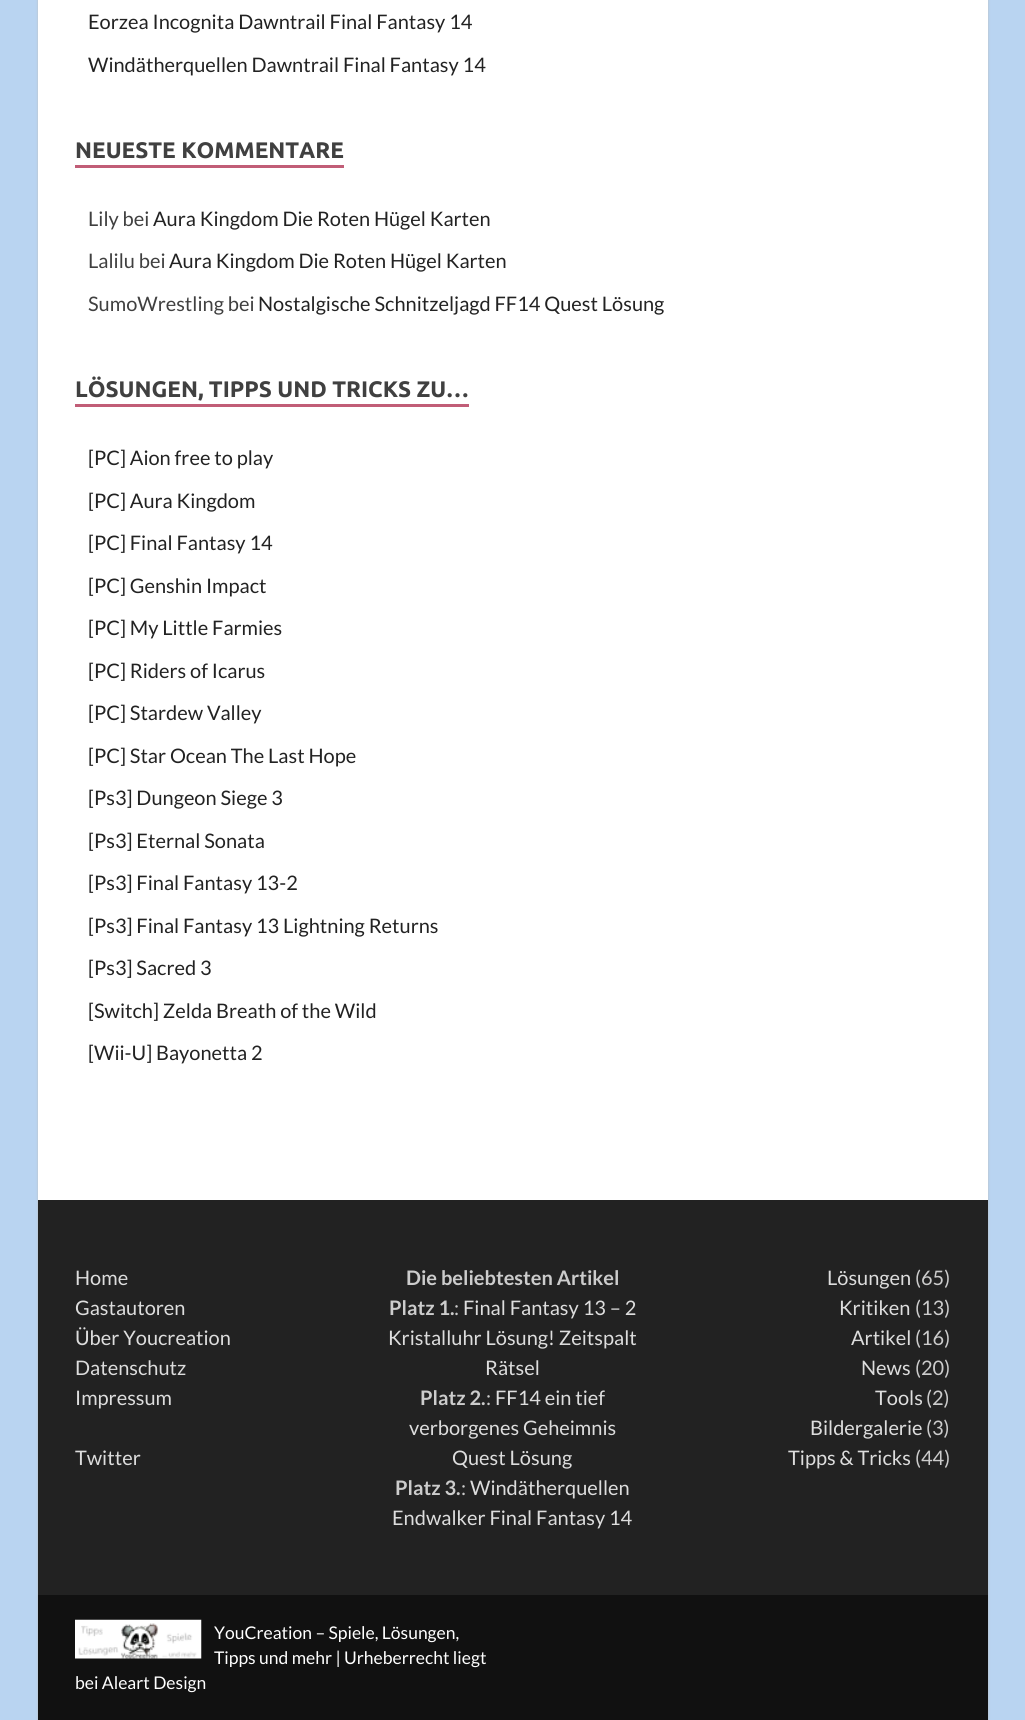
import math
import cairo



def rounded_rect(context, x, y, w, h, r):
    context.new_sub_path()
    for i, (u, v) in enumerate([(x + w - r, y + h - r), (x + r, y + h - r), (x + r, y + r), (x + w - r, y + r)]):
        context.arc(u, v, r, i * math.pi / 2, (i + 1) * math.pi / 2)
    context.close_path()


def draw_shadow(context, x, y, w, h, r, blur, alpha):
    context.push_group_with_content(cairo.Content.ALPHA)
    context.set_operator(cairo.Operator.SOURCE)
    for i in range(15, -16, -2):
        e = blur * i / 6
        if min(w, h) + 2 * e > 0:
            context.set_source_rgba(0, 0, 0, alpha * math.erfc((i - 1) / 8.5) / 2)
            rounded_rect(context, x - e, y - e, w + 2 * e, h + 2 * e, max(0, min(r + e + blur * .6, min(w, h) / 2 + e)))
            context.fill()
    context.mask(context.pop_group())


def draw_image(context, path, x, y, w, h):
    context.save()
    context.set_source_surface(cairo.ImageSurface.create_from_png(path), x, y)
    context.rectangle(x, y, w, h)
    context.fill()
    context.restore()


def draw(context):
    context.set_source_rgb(185 / 255, 212 / 255, 241 / 255)
    context.paint()
    context.set_source_rgb(187 / 255, 187 / 255, 187 / 255)
    draw_shadow(context, 38, -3, 950, 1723, 0, 1, 1)
    context.set_source_rgb(1, 1, 1)
    context.rectangle(38, 0, 950, 1200)
    context.fill()
    context.set_source_rgb(193 / 255, 93 / 255, 119 / 255)
    context.rectangle(75, 165, 269, 3)
    context.fill()
    context.rectangle(75, 404, 394, 3)
    context.fill()
    context.set_source_rgb(34 / 255, 34 / 255, 34 / 255)
    context.rectangle(38, 1200, 950, 395)
    context.fill()
    context.set_source_rgb(17 / 255, 17 / 255, 17 / 255)
    context.rectangle(38, 1595, 950, 125)
    context.fill()
    draw_image(context, "images/1.png", 75, 1619, 127, 40)
    context.select_font_face("Lato")
    context.set_font_size(20)
    context.set_source_rgb(34 / 255, 34 / 255, 34 / 255)
    context.move_to(88, 29)
    context.show_text("Eorzea Incognita Dawntrail Final Fantasy 14")
    context.move_to(88, 72)
    context.show_text("Windätherquellen Dawntrail Final Fantasy 14")
    context.select_font_face("Ubuntu", cairo.FontSlant.NORMAL, cairo.FontWeight.BOLD)
    context.set_font_size(22.5)
    context.set_source_rgb(64 / 255, 64 / 255, 64 / 255)
    context.move_to(75, 158)
    context.show_text("NEUESTE KOMMENTARE")
    context.select_font_face("Lato")
    context.set_font_size(20)
    context.move_to(88, 226)
    context.show_text("Lily bei")
    context.set_source_rgb(34 / 255, 34 / 255, 34 / 255)
    context.move_to(153, 226)
    context.show_text("Aura Kingdom Die Roten Hügel Karten")
    context.set_source_rgb(64 / 255, 64 / 255, 64 / 255)
    context.move_to(88, 268)
    context.show_text("Lalilu bei")
    context.set_source_rgb(34 / 255, 34 / 255, 34 / 255)
    context.move_to(169, 268)
    context.show_text("Aura Kingdom Die Roten Hügel Karten")
    context.set_source_rgb(64 / 255, 64 / 255, 64 / 255)
    context.move_to(88, 311)
    context.show_text("SumoWrestling bei")
    context.set_source_rgb(34 / 255, 34 / 255, 34 / 255)
    context.move_to(258, 311)
    context.show_text("Nostalgische Schnitzeljagd FF14 Quest Lösung")
    context.select_font_face("Ubuntu", cairo.FontSlant.NORMAL, cairo.FontWeight.BOLD)
    context.set_font_size(22.5)
    context.set_source_rgb(64 / 255, 64 / 255, 64 / 255)
    context.move_to(75, 397)
    context.show_text("LÖSUNGEN, TIPPS UND TRICKS ZU…")
    context.select_font_face("Lato")
    context.set_font_size(20)
    context.set_source_rgb(34 / 255, 34 / 255, 34 / 255)
    context.move_to(88, 465)
    context.show_text("[PC] Aion free to play")
    context.move_to(88, 508)
    context.show_text("[PC] Aura Kingdom")
    context.move_to(88, 550)
    context.show_text("[PC] Final Fantasy 14")
    context.move_to(88, 593)
    context.show_text("[PC] Genshin Impact")
    context.move_to(88, 635)
    context.show_text("[PC] My Little Farmies")
    context.move_to(88, 678)
    context.show_text("[PC] Riders of Icarus")
    context.move_to(88, 720)
    context.show_text("[PC] Stardew Valley")
    context.move_to(88, 763)
    context.show_text("[PC] Star Ocean The Last Hope")
    context.move_to(88, 805)
    context.show_text("[Ps3] Dungeon Siege 3")
    context.move_to(88, 848)
    context.show_text("[Ps3] Eternal Sonata")
    context.move_to(88, 890)
    context.show_text("[Ps3] Final Fantasy 13-2")
    context.move_to(88, 933)
    context.show_text("[Ps3] Final Fantasy 13 Lightning Returns")
    context.move_to(88, 975)
    context.show_text("[Ps3] Sacred 3")
    context.move_to(88, 1018)
    context.show_text("[Switch] Zelda Breath of the Wild")
    context.move_to(88, 1060)
    context.show_text("[Wii-U] Bayonetta 2")
    context.set_source_rgb(221 / 255, 221 / 255, 221 / 255)
    context.move_to(75, 1285)
    context.show_text("Home")
    context.move_to(75, 1315)
    context.show_text("Gastautoren")
    context.move_to(75, 1345)
    context.show_text("Über Youcreation")
    context.move_to(75, 1375)
    context.show_text("Datenschutz")
    context.move_to(75, 1405)
    context.show_text("Impressum")
    context.move_to(75, 1465)
    context.show_text("Twitter")
    context.select_font_face("Lato", cairo.FontSlant.NORMAL, cairo.FontWeight.BOLD)
    context.set_source_rgb(204 / 255, 204 / 255, 204 / 255)
    context.move_to(406, 1285)
    context.show_text("Die beliebtesten Artikel")
    context.move_to(389, 1315)
    context.show_text("Platz 1.")
    context.select_font_face("Lato")
    context.move_to(454, 1315)
    context.show_text(":")
    context.set_source_rgb(221 / 255, 221 / 255, 221 / 255)
    context.move_to(463, 1315)
    context.show_text("Final Fantasy 13 – 2")
    context.move_to(388, 1345)
    context.show_text("Kristalluhr Lösung! Zeitspalt")
    context.move_to(485, 1375)
    context.show_text("Rätsel")
    context.select_font_face("Lato", cairo.FontSlant.NORMAL, cairo.FontWeight.BOLD)
    context.set_source_rgb(204 / 255, 204 / 255, 204 / 255)
    context.move_to(420, 1405)
    context.show_text("Platz 2.")
    context.select_font_face("Lato")
    context.move_to(486, 1405)
    context.show_text(":")
    context.set_source_rgb(221 / 255, 221 / 255, 221 / 255)
    context.move_to(495, 1405)
    context.show_text("FF14 ein tief")
    context.move_to(409, 1435)
    context.show_text("verborgenes Geheimnis")
    context.move_to(452, 1465)
    context.show_text("Quest Lösung")
    context.select_font_face("Lato", cairo.FontSlant.NORMAL, cairo.FontWeight.BOLD)
    context.set_source_rgb(204 / 255, 204 / 255, 204 / 255)
    context.move_to(395, 1495)
    context.show_text("Platz 3.")
    context.select_font_face("Lato")
    context.move_to(461, 1495)
    context.show_text(":")
    context.set_source_rgb(221 / 255, 221 / 255, 221 / 255)
    context.move_to(470, 1495)
    context.show_text("Windätherquellen")
    context.move_to(392, 1525)
    context.show_text("Endwalker Final Fantasy 14")
    context.move_to(827, 1285)
    context.show_text("Lösungen")
    context.set_source_rgb(204 / 255, 204 / 255, 204 / 255)
    context.move_to(915, 1285)
    context.show_text("(65)")
    context.set_source_rgb(221 / 255, 221 / 255, 221 / 255)
    context.move_to(839, 1315)
    context.show_text("Kritiken")
    context.set_source_rgb(204 / 255, 204 / 255, 204 / 255)
    context.move_to(915, 1315)
    context.show_text("(13)")
    context.set_source_rgb(221 / 255, 221 / 255, 221 / 255)
    context.move_to(851, 1345)
    context.show_text("Artikel")
    context.set_source_rgb(204 / 255, 204 / 255, 204 / 255)
    context.move_to(915, 1345)
    context.show_text("(16)")
    context.set_source_rgb(221 / 255, 221 / 255, 221 / 255)
    context.move_to(861, 1375)
    context.show_text("News")
    context.set_source_rgb(204 / 255, 204 / 255, 204 / 255)
    context.move_to(915, 1375)
    context.show_text("(20)")
    context.set_source_rgb(221 / 255, 221 / 255, 221 / 255)
    context.move_to(875, 1405)
    context.show_text("Tools")
    context.set_source_rgb(204 / 255, 204 / 255, 204 / 255)
    context.move_to(926, 1405)
    context.show_text("(2)")
    context.set_source_rgb(221 / 255, 221 / 255, 221 / 255)
    context.move_to(810, 1435)
    context.show_text("Bildergalerie")
    context.set_source_rgb(204 / 255, 204 / 255, 204 / 255)
    context.move_to(926, 1435)
    context.show_text("(3)")
    context.set_source_rgb(221 / 255, 221 / 255, 221 / 255)
    context.move_to(788, 1465)
    context.show_text("Tipps & Tricks")
    context.set_source_rgb(204 / 255, 204 / 255, 204 / 255)
    context.move_to(915, 1465)
    context.show_text("(44)")
    context.set_font_size(17.5)
    context.set_source_rgb(1, 1, 1)
    context.move_to(214, 1639)
    context.show_text("YouCreation – Spiele, Lösungen,")
    context.move_to(214, 1664)
    context.show_text("Tipps und mehr | Urheberrecht liegt")
    context.move_to(75, 1689)
    context.show_text("bei Aleart Design")


surface = cairo.ImageSurface(cairo.Format.RGB24, 1025, 1720)
context = cairo.Context(surface)
options = cairo.FontOptions()
options.set_hint_metrics(cairo.HintMetrics.OFF)
options.set_hint_style(cairo.HintStyle.NONE)
context.set_font_options(options)
context.set_miter_limit(4)
draw(context)
surface.write_to_png("out.png")
